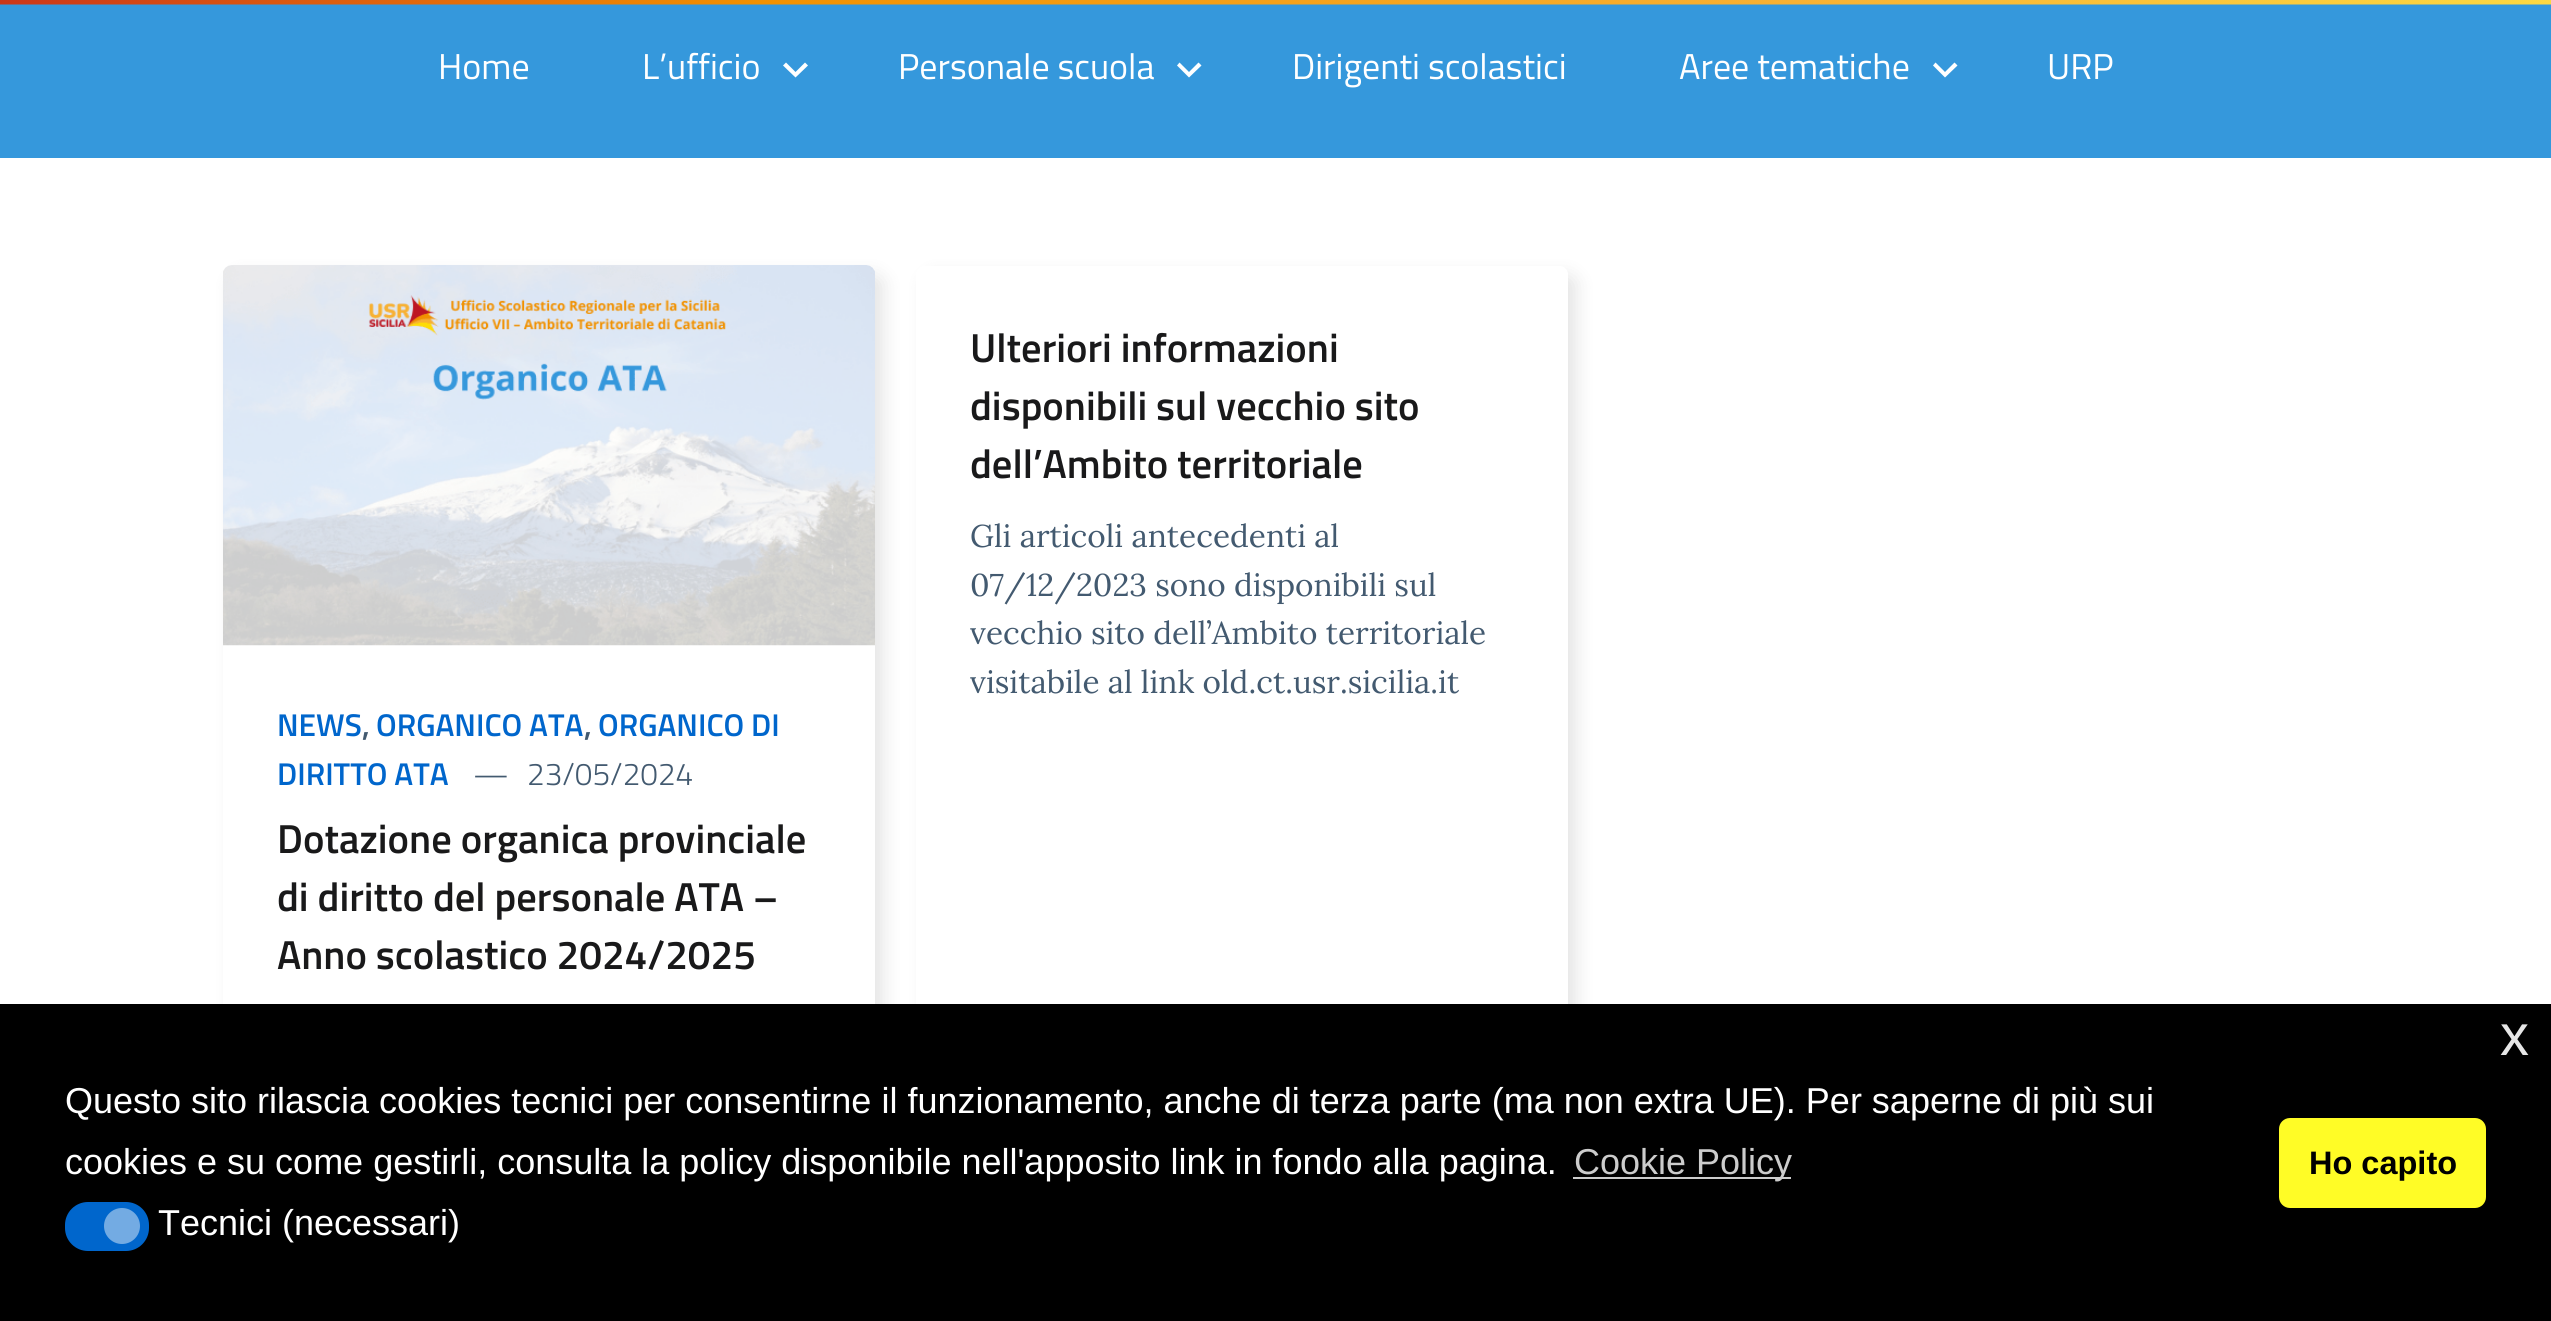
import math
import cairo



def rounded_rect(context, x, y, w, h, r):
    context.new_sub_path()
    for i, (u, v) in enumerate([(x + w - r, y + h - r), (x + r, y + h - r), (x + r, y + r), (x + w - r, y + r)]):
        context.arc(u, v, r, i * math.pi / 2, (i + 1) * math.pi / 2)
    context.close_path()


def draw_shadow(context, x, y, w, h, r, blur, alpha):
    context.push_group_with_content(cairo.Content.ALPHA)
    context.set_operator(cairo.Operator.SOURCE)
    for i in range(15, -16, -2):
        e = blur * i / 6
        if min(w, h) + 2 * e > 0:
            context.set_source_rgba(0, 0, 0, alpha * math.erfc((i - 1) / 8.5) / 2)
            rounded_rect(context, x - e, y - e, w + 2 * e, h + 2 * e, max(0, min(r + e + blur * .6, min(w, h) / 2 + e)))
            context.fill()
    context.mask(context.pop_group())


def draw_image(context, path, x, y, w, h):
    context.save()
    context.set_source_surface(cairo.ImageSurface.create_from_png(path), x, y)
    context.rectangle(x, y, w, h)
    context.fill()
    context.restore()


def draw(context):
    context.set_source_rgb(1, 1, 1)
    context.paint()
    context.set_source_rgb(53 / 255, 152 / 255, 220 / 255)
    context.rectangle(0, 4, 2551, 154)
    context.fill()
    draw_image(context, "images/1.png", 0, 0, 2551, 5)
    context.set_source_rgb(1, 1, 1)
    context.new_path()
    context.move_to(786, 62.5)
    context.line_to(783, 65.5)
    context.line_to(795.5, 77.5)
    context.line_to(808, 65.5)
    context.line_to(805, 62.5)
    context.line_to(795.5, 72)
    context.close_path()
    context.fill()
    context.new_path()
    context.move_to(1179.5, 62.5)
    context.line_to(1177, 65.5)
    context.line_to(1189, 77.5)
    context.line_to(1201.5, 65.5)
    context.line_to(1198.5, 62.5)
    context.line_to(1189, 72)
    context.close_path()
    context.fill()
    context.new_path()
    context.move_to(1935.5, 62.5)
    context.line_to(1933, 65.5)
    context.line_to(1945, 77.5)
    context.line_to(1957.5, 65.5)
    context.line_to(1954.5, 62.5)
    context.line_to(1945, 72)
    context.close_path()
    context.fill()
    context.save()
    context.set_fill_rule(cairo.FillRule.EVEN_ODD)
    context.new_path()
    context.move_to(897, 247)
    context.line_to(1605, 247)
    context.line_to(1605, 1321)
    context.line_to(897, 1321)
    context.close_path()
    context.move_to(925, 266)
    context.line_to(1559, 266)
    context.curve_to(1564, 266, 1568, 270, 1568, 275)
    context.line_to(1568, 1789)
    context.curve_to(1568, 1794, 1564, 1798, 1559, 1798)
    context.line_to(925, 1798)
    context.curve_to(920, 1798, 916, 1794, 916, 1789)
    context.line_to(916, 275)
    context.curve_to(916, 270, 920, 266, 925, 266)
    context.close_path()
    context.clip()
    context.set_source_rgb(0, 0, 0)
    draw_shadow(context, 925, 275, 652, 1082, 9, 9, 0.1)
    context.restore()
    context.save()
    context.set_fill_rule(cairo.FillRule.EVEN_ODD)
    context.new_path()
    context.move_to(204, 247)
    context.line_to(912, 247)
    context.line_to(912, 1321)
    context.line_to(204, 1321)
    context.close_path()
    context.move_to(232, 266)
    context.line_to(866, 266)
    context.curve_to(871, 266, 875, 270, 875, 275)
    context.line_to(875, 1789)
    context.curve_to(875, 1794, 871, 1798, 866, 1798)
    context.line_to(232, 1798)
    context.curve_to(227, 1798, 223, 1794, 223, 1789)
    context.line_to(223, 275)
    context.curve_to(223, 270, 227, 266, 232, 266)
    context.close_path()
    context.clip()
    context.set_source_rgb(0, 0, 0)
    draw_shadow(context, 232, 275, 652, 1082, 9, 9, 0.1)
    context.restore()
    draw_image(context, "images/2.png", 223, 265, 652, 381)
    context.set_source_rgb(0, 0, 0)
    context.rectangle(0, 1004, 2551, 317)
    context.fill()
    context.set_source_rgb(204 / 255, 204 / 255, 204 / 255)
    context.rectangle(1573, 1177, 218, 2)
    context.fill()
    context.set_source_rgb(0, 102 / 255, 204 / 255)
    rounded_rect(context, 65, 1202, 84, 49, 23)
    context.fill()
    context.set_source_rgb(115 / 255, 171 / 255, 227 / 255)
    context.arc(122, 1226, 18, 0, 2 * math.pi)
    context.fill()
    context.set_source_rgb(1, 252 / 255, 38 / 255)
    rounded_rect(context, 2279, 1118, 207, 90, 11)
    context.fill()
    context.select_font_face("Titillium Web")
    context.set_font_size(36)
    context.set_source_rgb(1, 1, 1)
    context.move_to(438, 79)
    context.show_text("Home")
    context.move_to(642, 79)
    context.show_text("L’ufficio")
    context.move_to(898, 79)
    context.show_text("Personale scuola")
    context.move_to(1292, 79)
    context.show_text("Dirigenti scolastici")
    context.move_to(1679, 79)
    context.show_text("Aree tematiche")
    context.move_to(2047, 79)
    context.show_text("URP")
    context.select_font_face("Titillium Web SemiBold")
    context.set_font_size(40.5)
    context.set_source_rgb(25 / 255, 25 / 255, 26 / 255)
    context.move_to(970, 362)
    context.show_text("Ulteriori informazioni")
    context.move_to(970, 420)
    context.show_text("disponibili sul vecchio sito")
    context.move_to(970, 478)
    context.show_text("dell’Ambito territoriale")
    context.select_font_face("Lora")
    context.set_font_size(31.5)
    context.set_source_rgb(67 / 255, 90 / 255, 112 / 255)
    context.move_to(970, 547)
    context.show_text("Gli articoli antecedenti al")
    context.move_to(970, 596)
    context.show_text("07/12/2023 sono disponibili sul")
    context.move_to(970, 644)
    context.show_text("vecchio sito dell’Ambito territoriale")
    context.move_to(970, 693)
    context.show_text("visitabile al link old.ct.usr.sicilia.it")
    context.select_font_face("Titillium Web SemiBold")
    context.set_source_rgb(0, 102 / 255, 204 / 255)
    context.move_to(277, 736)
    context.show_text("NEWS")
    context.set_source_rgb(67 / 255, 90 / 255, 112 / 255)
    context.move_to(362, 736)
    context.show_text(",")
    context.set_source_rgb(0, 102 / 255, 204 / 255)
    context.move_to(376, 736)
    context.show_text("ORGANICO ATA")
    context.set_source_rgb(67 / 255, 90 / 255, 112 / 255)
    context.move_to(584, 736)
    context.show_text(",")
    context.set_source_rgb(0, 102 / 255, 204 / 255)
    context.move_to(598, 736)
    context.show_text("ORGANICO DI")
    context.move_to(277, 785)
    context.show_text("DIRITTO ATA")
    context.select_font_face("Titillium Web Light")
    context.set_source_rgb(67 / 255, 90 / 255, 112 / 255)
    context.move_to(473, 785)
    context.show_text("—")
    context.move_to(527, 785)
    context.show_text("23/05/2024")
    context.select_font_face("Titillium Web SemiBold")
    context.set_font_size(40.5)
    context.set_source_rgb(25 / 255, 25 / 255, 26 / 255)
    context.move_to(277, 853)
    context.show_text("Dotazione organica provinciale")
    context.move_to(277, 911)
    context.show_text("di diritto del personale ATA –")
    context.move_to(277, 969)
    context.show_text("Anno scolastico 2024/2025")
    context.select_font_face("Liberation Sans")
    context.set_font_size(58)
    context.set_source_rgb(230 / 255, 230 / 255, 230 / 255)
    context.move_to(2500, 1055)
    context.show_text("x")
    context.set_font_size(36)
    context.set_source_rgb(1, 1, 1)
    context.move_to(65, 1113)
    context.show_text("Questo sito rilascia cookies tecnici per consentirne il funzionamento, anche di terza parte (ma non extra UE). Per saperne di più sui")
    context.move_to(65, 1174)
    context.show_text("cookies e su come gestirli, consulta la policy disponibile nell'apposito link in fondo alla pagina.")
    context.set_source_rgb(204 / 255, 204 / 255, 204 / 255)
    context.move_to(1574, 1174)
    context.show_text("Cookie Policy")
    context.set_source_rgb(1, 1, 1)
    context.move_to(158, 1235)
    context.show_text("Tecnici (necessari)")
    context.select_font_face("Liberation Sans", cairo.FontSlant.NORMAL, cairo.FontWeight.BOLD)
    context.set_font_size(32.5)
    context.set_source_rgb(0, 0, 0)
    context.move_to(2309, 1174)
    context.show_text("Ho capito")


surface = cairo.ImageSurface(cairo.Format.RGB24, 2551, 1321)
context = cairo.Context(surface)
options = cairo.FontOptions()
options.set_hint_metrics(cairo.HintMetrics.OFF)
options.set_hint_style(cairo.HintStyle.NONE)
context.set_font_options(options)
context.set_miter_limit(4)
draw(context)
surface.write_to_png("out.png")
